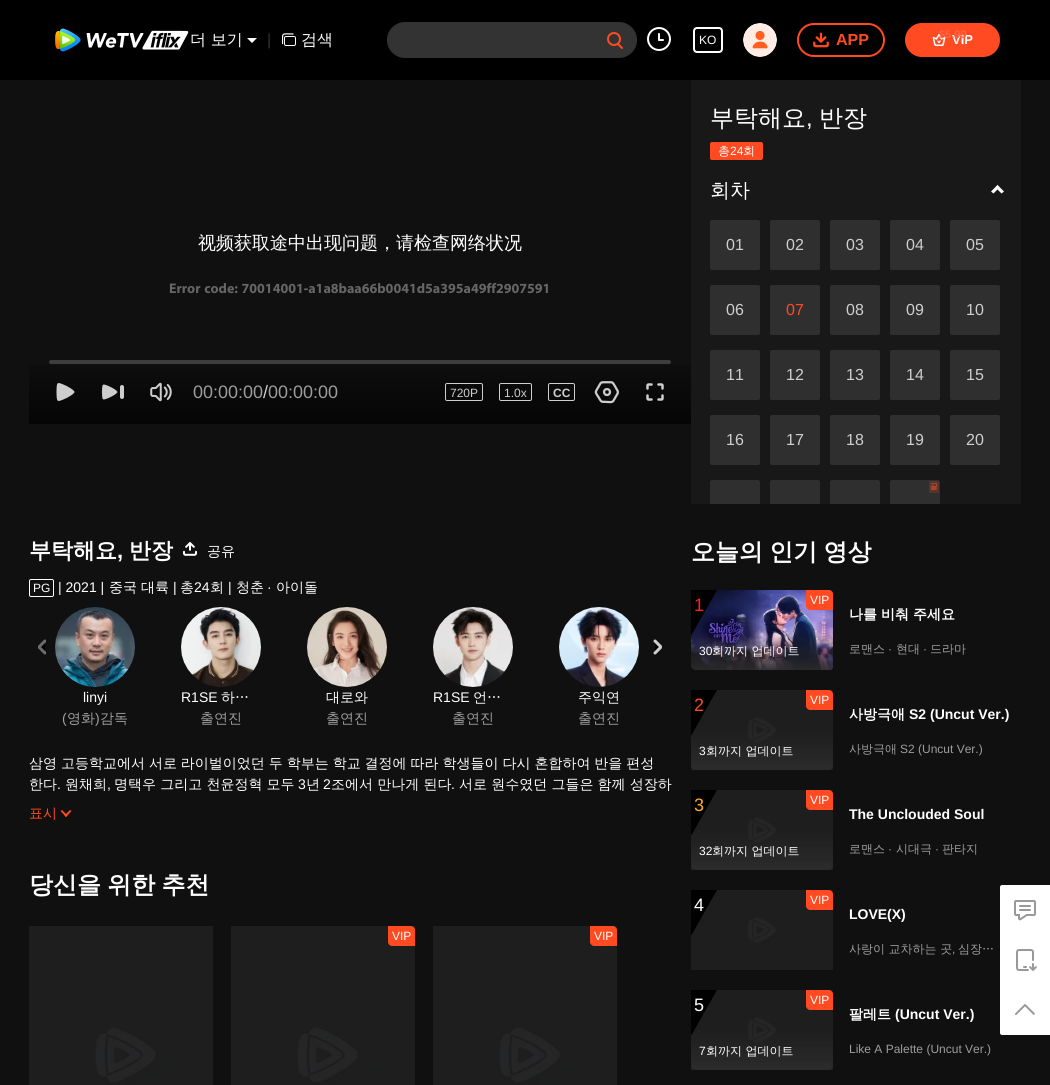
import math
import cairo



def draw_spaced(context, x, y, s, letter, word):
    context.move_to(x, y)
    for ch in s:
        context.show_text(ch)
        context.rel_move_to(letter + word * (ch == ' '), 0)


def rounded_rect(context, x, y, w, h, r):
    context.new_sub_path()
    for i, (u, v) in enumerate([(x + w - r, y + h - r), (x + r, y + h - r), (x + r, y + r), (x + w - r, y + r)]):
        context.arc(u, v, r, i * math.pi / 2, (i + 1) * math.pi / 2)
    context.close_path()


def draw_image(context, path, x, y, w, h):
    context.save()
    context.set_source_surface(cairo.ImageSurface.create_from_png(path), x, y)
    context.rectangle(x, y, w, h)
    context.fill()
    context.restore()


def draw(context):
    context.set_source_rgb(16 / 255, 16 / 255, 16 / 255)
    context.paint()
    context.set_source_rgb(0, 0, 0)
    context.rectangle(0, 0, 1050, 80)
    context.fill()
    draw_image(context, "images/1.png", 55, 28, 134, 24)
    context.set_source_rgb(1, 1, 1)
    context.new_path()
    context.move_to(247, 38)
    context.line_to(257, 38)
    context.line_to(252, 43)
    context.close_path()
    context.fill()
    rounded_rect(context, 284.5, 36.5, 11, 9, 1.5)
    context.set_line_width(1)
    context.stroke()
    context.save()
    context.rectangle(282, 33, 14, 14)
    context.clip()
    context.new_path()
    context.move_to(293, 34)
    context.curve_to(281.5, 34, 282.5, 32, 282.5, 43.5)
    context.set_line_width(1.2)
    context.set_line_cap(cairo.LineCap.ROUND)
    context.stroke()
    context.restore()
    context.set_source_rgb(51 / 255, 51 / 255, 51 / 255)
    rounded_rect(context, 387, 22, 250, 36, 18)
    context.fill()
    draw_image(context, "images/2.png", 607, 32, 16, 17)
    draw_image(context, "images/3.png", 647, 27, 24, 24)
    rounded_rect(context, 694, 28, 28, 24, 3)
    context.set_source_rgb(1, 1, 1)
    context.set_line_width(2)
    context.stroke()
    draw_image(context, "images/4.png", 743, 23, 34, 34)
    rounded_rect(context, 798, 24, 86, 32, 16)
    context.set_source_rgb(1, 74 / 255, 34 / 255)
    context.stroke()
    draw_image(context, "images/5.png", 813, 32, 16, 16)
    rounded_rect(context, 905, 23, 95, 34, 17)
    context.fill()
    draw_image(context, "images/6.png", 932, 34, 14, 13)
    gradient = cairo.LinearGradient(360, 340, 360, 424)
    gradient.add_color_stop_rgba(0, 17 / 255, 17 / 255, 17 / 255, 1)
    gradient.add_color_stop_rgba(1, 5 / 255, 5 / 255, 5 / 255, 1)
    context.set_source(gradient)
    context.rectangle(29, 365, 662, 59)
    context.fill()
    context.set_source_rgb(62 / 255, 62 / 255, 62 / 255)
    rounded_rect(context, 49, 360, 622, 4, 2)
    context.fill()
    draw_image(context, "images/7.png", 56, 383, 19, 18)
    draw_image(context, "images/8.png", 102, 384, 22, 16)
    draw_image(context, "images/9.png", 150, 382, 22, 20)
    rounded_rect(context, 445.5, 383.5, 37, 17, 1.5)
    context.set_source_rgba(1, 1, 1, 0.8)
    context.set_line_width(1)
    context.stroke()
    rounded_rect(context, 499.5, 383.5, 32, 17, 1.5)
    context.stroke()
    rounded_rect(context, 548.5, 383.5, 26, 17, 1.5)
    context.stroke()
    draw_image(context, "images/10.png", 594, 381, 25, 23)
    draw_image(context, "images/11.png", 646, 383, 18, 18)
    context.set_source_rgb(24 / 255, 24 / 255, 24 / 255)
    context.rectangle(691, 80, 330, 424)
    context.fill()
    context.set_source_rgb(1, 74 / 255, 34 / 255)
    rounded_rect(context, 710, 142, 53, 18, 2)
    context.fill()
    context.set_source_rgb(1, 1, 1)
    context.new_path()
    context.move_to(993.5, 193.5)
    context.line_to(991, 191.5)
    context.line_to(997.5, 185)
    context.line_to(999.5, 187.5)
    context.close_path()
    context.fill()
    context.new_path()
    context.move_to(1001.5, 193.5)
    context.line_to(995.5, 187.5)
    context.line_to(997.5, 185)
    context.line_to(1004, 191.5)
    context.close_path()
    context.fill()
    context.set_source_rgb(47 / 255, 47 / 255, 47 / 255)
    rounded_rect(context, 710, 220, 50, 50, 2)
    context.fill()
    rounded_rect(context, 770, 220, 50, 50, 2)
    context.fill()
    rounded_rect(context, 830, 220, 50, 50, 2)
    context.fill()
    rounded_rect(context, 890, 220, 50, 50, 2)
    context.fill()
    rounded_rect(context, 950, 220, 50, 50, 2)
    context.fill()
    rounded_rect(context, 710, 285, 50, 50, 2)
    context.fill()
    rounded_rect(context, 770, 285, 50, 50, 2)
    context.fill()
    rounded_rect(context, 830, 285, 50, 50, 2)
    context.fill()
    rounded_rect(context, 890, 285, 50, 50, 2)
    context.fill()
    rounded_rect(context, 950, 285, 50, 50, 2)
    context.fill()
    rounded_rect(context, 710, 350, 50, 50, 2)
    context.fill()
    rounded_rect(context, 770, 350, 50, 50, 2)
    context.fill()
    rounded_rect(context, 830, 350, 50, 50, 2)
    context.fill()
    rounded_rect(context, 890, 350, 50, 50, 2)
    context.fill()
    rounded_rect(context, 950, 350, 50, 50, 2)
    context.fill()
    rounded_rect(context, 710, 415, 50, 50, 2)
    context.fill()
    rounded_rect(context, 770, 415, 50, 50, 2)
    context.fill()
    rounded_rect(context, 830, 415, 50, 50, 2)
    context.fill()
    rounded_rect(context, 890, 415, 50, 50, 2)
    context.fill()
    rounded_rect(context, 950, 415, 50, 50, 2)
    context.fill()
    context.new_path()
    context.move_to(712, 480)
    context.line_to(758, 480)
    context.curve_to(759, 480, 760, 481, 760, 482)
    context.line_to(760, 504)
    context.line_to(710, 504)
    context.line_to(710, 482)
    context.curve_to(710, 481, 711, 480, 712, 480)
    context.close_path()
    context.fill()
    context.new_path()
    context.move_to(772, 480)
    context.line_to(818, 480)
    context.curve_to(819, 480, 820, 481, 820, 482)
    context.line_to(820, 504)
    context.line_to(770, 504)
    context.line_to(770, 482)
    context.curve_to(770, 481, 771, 480, 772, 480)
    context.close_path()
    context.fill()
    context.new_path()
    context.move_to(832, 480)
    context.line_to(878, 480)
    context.curve_to(879, 480, 880, 481, 880, 482)
    context.line_to(880, 504)
    context.line_to(830, 504)
    context.line_to(830, 482)
    context.curve_to(830, 481, 831, 480, 832, 480)
    context.close_path()
    context.fill()
    context.new_path()
    context.move_to(892, 480)
    context.line_to(938, 480)
    context.curve_to(939, 480, 940, 481, 940, 482)
    context.line_to(940, 504)
    context.line_to(890, 504)
    context.line_to(890, 482)
    context.curve_to(890, 481, 891, 480, 892, 480)
    context.close_path()
    context.fill()
    context.set_source_rgb(83 / 255, 54 / 255, 46 / 255)
    context.new_path()
    context.move_to(929, 481)
    context.line_to(937.5, 481)
    context.curve_to(938.5, 481, 939, 481.5, 939, 482.5)
    context.line_to(939, 493)
    context.line_to(930.5, 493)
    context.curve_to(929.5, 493, 929, 492.5, 929, 491.5)
    context.close_path()
    context.fill()
    draw_image(context, "images/12.png", 183, 542, 14, 14)
    rounded_rect(context, 29.5, 579.5, 24, 17, 1.5)
    context.set_source_rgb(1, 1, 1)
    context.stroke()
    context.set_source_rgb(0, 0, 0)
    context.new_path()
    context.move_to(45, 641)
    context.line_to(39.5, 646.5)
    context.line_to(39.5, 647.5)
    context.line_to(45, 653)
    context.fill()
    context.save()
    context.rectangle(36, 639, 10, 16)
    context.clip()
    context.new_path()
    context.move_to(45, 641)
    context.line_to(39.5, 646.5)
    context.line_to(39.5, 647.5)
    context.line_to(45, 653)
    context.set_source_rgba(1, 1, 1, 0.4)
    context.set_line_width(3)
    context.set_line_cap(cairo.LineCap.ROUND)
    context.set_line_join(cairo.LineJoin.ROUND)
    context.stroke()
    context.restore()
    context.new_path()
    context.move_to(655, 653)
    context.line_to(660.5, 647.5)
    context.line_to(660.5, 646.5)
    context.line_to(655, 641)
    context.fill_preserve()
    context.set_source_rgba(1, 1, 1, 0.8)
    context.set_line_width(3)
    context.set_line_cap(cairo.LineCap.ROUND)
    context.set_line_join(cairo.LineJoin.ROUND)
    context.stroke()
    draw_image(context, "images/13.png", 55, 607, 80, 80)
    draw_image(context, "images/14.png", 181, 607, 80, 80)
    draw_image(context, "images/15.png", 307, 607, 80, 80)
    draw_image(context, "images/16.png", 433, 607, 80, 80)
    draw_image(context, "images/17.png", 559, 607, 80, 80)
    context.set_source_rgb(1, 74 / 255, 34 / 255)
    context.new_path()
    context.move_to(70, 810)
    context.line_to(71.5, 811)
    context.line_to(66, 817)
    context.line_to(64.5, 815.5)
    context.close_path()
    context.fill()
    context.new_path()
    context.move_to(62, 810)
    context.line_to(67.5, 815.5)
    context.line_to(66, 817)
    context.line_to(60.5, 811)
    context.close_path()
    context.fill()
    draw_image(context, "images/18.png", 29, 926, 184, 159)
    draw_image(context, "images/18.png", 231, 926, 184, 159)
    context.new_path()
    context.move_to(388, 926)
    context.line_to(411, 926)
    context.curve_to(413, 926, 415, 928, 415, 930)
    context.line_to(415, 946)
    context.line_to(392, 946)
    context.curve_to(390, 946, 388, 944, 388, 942)
    context.close_path()
    context.fill()
    draw_image(context, "images/18.png", 433, 926, 184, 159)
    context.new_path()
    context.move_to(590, 926)
    context.line_to(613, 926)
    context.curve_to(615, 926, 617, 928, 617, 930)
    context.line_to(617, 946)
    context.line_to(594, 946)
    context.curve_to(592, 946, 590, 944, 590, 942)
    context.close_path()
    context.fill()
    draw_image(context, "images/19.png", 691, 590, 142, 80)
    context.new_path()
    context.move_to(806, 590)
    context.line_to(829, 590)
    context.curve_to(831, 590, 833, 592, 833, 594)
    context.line_to(833, 610)
    context.line_to(810, 610)
    context.curve_to(808, 610, 806, 608, 806, 606)
    context.close_path()
    context.fill()
    context.set_source_rgb(0, 0, 0)
    context.new_path()
    context.move_to(691, 590)
    context.line_to(691, 636)
    context.line_to(717, 590)
    context.close_path()
    context.fill()
    gradient = cairo.LinearGradient(762, 670, 762, 632)
    gradient.add_color_stop_rgba(0, 45 / 255, 45 / 255, 45 / 255, 0.9)
    gradient.add_color_stop_rgba(1, 45 / 255, 45 / 255, 45 / 255, 0)
    context.set_source(gradient)
    context.new_path()
    context.move_to(691, 632)
    context.line_to(833, 632)
    context.line_to(833, 666)
    context.curve_to(833, 668, 831, 670, 829, 670)
    context.line_to(695, 670)
    context.curve_to(693, 670, 691, 668, 691, 666)
    context.close_path()
    context.fill()
    draw_image(context, "images/20.png", 691, 690, 142, 80)
    context.set_source_rgb(1, 74 / 255, 34 / 255)
    context.new_path()
    context.move_to(806, 690)
    context.line_to(829, 690)
    context.curve_to(831, 690, 833, 692, 833, 694)
    context.line_to(833, 710)
    context.line_to(810, 710)
    context.curve_to(808, 710, 806, 708, 806, 706)
    context.close_path()
    context.fill()
    context.set_source_rgb(0, 0, 0)
    context.new_path()
    context.move_to(691, 690)
    context.line_to(691, 736)
    context.line_to(717, 690)
    context.close_path()
    context.fill()
    gradient = cairo.LinearGradient(762, 770, 762, 732)
    gradient.add_color_stop_rgba(0, 45 / 255, 45 / 255, 45 / 255, 0.9)
    gradient.add_color_stop_rgba(1, 45 / 255, 45 / 255, 45 / 255, 0)
    context.set_source(gradient)
    context.new_path()
    context.move_to(691, 732)
    context.line_to(833, 732)
    context.line_to(833, 766)
    context.curve_to(833, 768, 831, 770, 829, 770)
    context.line_to(695, 770)
    context.curve_to(693, 770, 691, 768, 691, 766)
    context.close_path()
    context.fill()
    draw_image(context, "images/20.png", 691, 790, 142, 80)
    context.set_source_rgb(1, 74 / 255, 34 / 255)
    context.new_path()
    context.move_to(806, 790)
    context.line_to(829, 790)
    context.curve_to(831, 790, 833, 792, 833, 794)
    context.line_to(833, 810)
    context.line_to(810, 810)
    context.curve_to(808, 810, 806, 808, 806, 806)
    context.close_path()
    context.fill()
    context.set_source_rgb(0, 0, 0)
    context.new_path()
    context.move_to(691, 790)
    context.line_to(691, 836)
    context.line_to(717, 790)
    context.close_path()
    context.fill()
    gradient = cairo.LinearGradient(762, 870, 762, 832)
    gradient.add_color_stop_rgba(0, 45 / 255, 45 / 255, 45 / 255, 0.9)
    gradient.add_color_stop_rgba(1, 45 / 255, 45 / 255, 45 / 255, 0)
    context.set_source(gradient)
    context.new_path()
    context.move_to(691, 832)
    context.line_to(833, 832)
    context.line_to(833, 866)
    context.curve_to(833, 868, 831, 870, 829, 870)
    context.line_to(695, 870)
    context.curve_to(693, 870, 691, 868, 691, 866)
    context.close_path()
    context.fill()
    draw_image(context, "images/20.png", 691, 890, 142, 80)
    context.set_source_rgb(0, 0, 0)
    context.new_path()
    context.move_to(691, 890)
    context.line_to(691, 936)
    context.line_to(717, 890)
    context.close_path()
    context.fill()
    context.set_source_rgb(1, 74 / 255, 34 / 255)
    context.new_path()
    context.move_to(806, 890)
    context.line_to(829, 890)
    context.curve_to(831, 890, 833, 892, 833, 894)
    context.line_to(833, 910)
    context.line_to(810, 910)
    context.curve_to(808, 910, 806, 908, 806, 906)
    context.close_path()
    context.fill()
    draw_image(context, "images/20.png", 691, 990, 142, 80)
    context.new_path()
    context.move_to(806, 990)
    context.line_to(829, 990)
    context.curve_to(831, 990, 833, 992, 833, 994)
    context.line_to(833, 1010)
    context.line_to(810, 1010)
    context.curve_to(808, 1010, 806, 1008, 806, 1006)
    context.close_path()
    context.fill()
    context.set_source_rgb(0, 0, 0)
    context.new_path()
    context.move_to(691, 990)
    context.line_to(691, 1036)
    context.line_to(717, 990)
    context.close_path()
    context.fill()
    gradient = cairo.LinearGradient(762, 1070, 762, 1032)
    gradient.add_color_stop_rgba(0, 45 / 255, 45 / 255, 45 / 255, 0.9)
    gradient.add_color_stop_rgba(1, 45 / 255, 45 / 255, 45 / 255, 0)
    context.set_source(gradient)
    context.new_path()
    context.move_to(691, 1032)
    context.line_to(833, 1032)
    context.line_to(833, 1066)
    context.curve_to(833, 1068, 831, 1070, 829, 1070)
    context.line_to(695, 1070)
    context.curve_to(693, 1070, 691, 1068, 691, 1066)
    context.close_path()
    context.fill()
    context.set_source_rgb(1, 1, 1)
    context.new_path()
    context.move_to(1002, 885)
    context.line_to(1050, 885)
    context.line_to(1050, 1035)
    context.line_to(1002, 1035)
    context.curve_to(1001, 1035, 1000, 1034, 1000, 1033)
    context.line_to(1000, 887)
    context.curve_to(1000, 886, 1001, 885, 1002, 885)
    context.close_path()
    context.fill()
    draw_image(context, "images/21.png", 1014, 900, 22, 21)
    draw_image(context, "images/22.png", 1016, 949, 21, 22)
    draw_image(context, "images/23.png", 1015, 1004, 20, 11)
    context.select_font_face("WenQuanYi Zen Hei Medium")
    context.set_font_size(16)
    context.move_to(190, 45)
    context.show_text("더 보기")
    context.select_font_face("Liberation Sans")
    context.set_source_rgb(51 / 255, 51 / 255, 51 / 255)
    context.move_to(267, 45)
    context.show_text("|")
    context.select_font_face("WenQuanYi Zen Hei Medium")
    context.set_source_rgb(1, 1, 1)
    context.move_to(301, 45)
    context.show_text("검색")
    context.select_font_face("Liberation Sans")
    context.set_font_size(12)
    context.move_to(699, 44)
    context.show_text("KO")
    context.select_font_face("Liberation Sans", cairo.FontSlant.NORMAL, cairo.FontWeight.BOLD)
    context.set_font_size(16)
    context.set_source_rgb(1, 74 / 255, 34 / 255)
    context.move_to(836, 45)
    context.show_text("APP")
    context.set_font_size(13)
    context.set_source_rgb(1, 1, 1)
    context.move_to(952, 44)
    context.show_text("VIP")
    context.set_font_size(11)
    context.set_source_rgb(1, 102 / 255, 68 / 255)
    context.move_to(939, 38)
    context.show_text("$5.99")
    context.select_font_face("WenQuanYi Zen Hei Medium")
    context.set_font_size(18)
    context.set_source_rgb(1, 1, 1)
    context.move_to(198, 249)
    context.show_text("视频获取途中出现问题，请检查网络状况")
    context.select_font_face("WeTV", cairo.FontSlant.NORMAL, cairo.FontWeight.BOLD)
    context.set_font_size(14)
    context.set_source_rgb(102 / 255, 102 / 255, 102 / 255)
    context.move_to(169, 293)
    context.show_text("Error code: 70014001-a1a8baa66b0041d5a395a49ff2907591")
    context.select_font_face("Liberation Sans")
    context.set_font_size(18)
    context.set_source_rgb(157 / 255, 157 / 255, 157 / 255)
    context.move_to(193, 398)
    context.show_text("00:00:00")
    context.set_source_rgb(206 / 255, 206 / 255, 206 / 255)
    context.move_to(263, 398)
    context.show_text("/")
    context.set_source_rgb(157 / 255, 157 / 255, 157 / 255)
    context.move_to(268, 398)
    context.show_text("00:00:00")
    context.set_font_size(12)
    context.set_source_rgb(206 / 255, 206 / 255, 206 / 255)
    context.move_to(450, 397)
    context.show_text("720P")
    context.move_to(504, 397)
    context.show_text("1.0x")
    context.select_font_face("Liberation Sans", cairo.FontSlant.NORMAL, cairo.FontWeight.BOLD)
    context.move_to(553, 397)
    context.show_text("CC")
    context.select_font_face("WenQuanYi Zen Hei Medium")
    context.set_font_size(24)
    context.set_source_rgb(1, 1, 1)
    context.move_to(710, 126)
    context.show_text("부탁해요")
    context.select_font_face("Liberation Sans")
    context.move_to(806, 126)
    context.show_text(",")
    context.select_font_face("WenQuanYi Zen Hei Medium")
    context.move_to(819, 126)
    context.show_text("반장")
    context.set_font_size(12)
    context.move_to(718, 155)
    context.show_text("총")
    context.select_font_face("Liberation Sans")
    context.move_to(730, 155)
    context.show_text("24")
    context.select_font_face("WenQuanYi Zen Hei Medium")
    context.move_to(743, 155)
    context.show_text("회")
    context.set_font_size(20)
    context.move_to(710, 197)
    context.show_text("회차")
    context.select_font_face("Liberation Sans")
    context.set_font_size(16)
    context.set_source_rgb(206 / 255, 206 / 255, 206 / 255)
    context.move_to(726, 250)
    context.show_text("01")
    context.move_to(786, 250)
    context.show_text("02")
    context.move_to(846, 250)
    context.show_text("03")
    context.move_to(906, 250)
    context.show_text("04")
    context.move_to(966, 250)
    context.show_text("05")
    context.move_to(726, 315)
    context.show_text("06")
    context.set_source_rgb(1, 74 / 255, 34 / 255)
    context.move_to(786, 315)
    context.show_text("07")
    context.set_source_rgb(206 / 255, 206 / 255, 206 / 255)
    context.move_to(846, 315)
    context.show_text("08")
    context.move_to(906, 315)
    context.show_text("09")
    context.move_to(966, 315)
    context.show_text("10")
    context.move_to(726, 380)
    context.show_text("11")
    context.move_to(786, 380)
    context.show_text("12")
    context.move_to(846, 380)
    context.show_text("13")
    context.move_to(906, 380)
    context.show_text("14")
    context.move_to(966, 380)
    context.show_text("15")
    context.move_to(726, 445)
    context.show_text("16")
    context.move_to(786, 445)
    context.show_text("17")
    context.move_to(846, 445)
    context.show_text("18")
    context.move_to(906, 445)
    context.show_text("19")
    context.move_to(966, 445)
    context.show_text("20")
    context.select_font_face("WenQuanYi Zen Hei Medium")
    context.set_font_size(8)
    context.set_source_rgb(1, 74 / 255, 34 / 255)
    context.move_to(930, 489)
    context.show_text("끝")
    context.select_font_face("WenQuanYi Zen Hei", cairo.FontSlant.NORMAL, cairo.FontWeight.BOLD)
    context.set_font_size(22)
    context.set_source_rgb(1, 1, 1)
    context.move_to(29, 558)
    context.show_text("부탁해요")
    context.select_font_face("Liberation Sans", cairo.FontSlant.NORMAL, cairo.FontWeight.BOLD)
    context.move_to(117, 558)
    context.show_text(",")
    context.select_font_face("WenQuanYi Zen Hei", cairo.FontSlant.NORMAL, cairo.FontWeight.BOLD)
    context.move_to(129, 558)
    context.show_text("반장")
    context.select_font_face("WenQuanYi Zen Hei Medium")
    context.set_font_size(14)
    context.move_to(207, 556)
    context.show_text("공유")
    context.select_font_face("Liberation Sans")
    context.set_font_size(12)
    context.move_to(33, 592)
    context.show_text("PG")
    context.set_font_size(14)
    context.move_to(58, 592)
    context.show_text("| 2021 |")
    context.select_font_face("WenQuanYi Zen Hei Medium")
    draw_spaced(context, 109, 592, "중국 대륙", 0, -0.25)
    context.select_font_face("Liberation Sans")
    context.move_to(173, 592)
    context.show_text("|")
    context.select_font_face("WenQuanYi Zen Hei Medium")
    context.move_to(180, 592)
    context.show_text("총")
    context.select_font_face("Liberation Sans")
    context.move_to(194, 592)
    context.show_text("24")
    context.select_font_face("WenQuanYi Zen Hei Medium")
    context.move_to(210, 592)
    context.show_text("회")
    context.select_font_face("Liberation Sans")
    context.move_to(228, 592)
    context.show_text("|")
    context.select_font_face("WenQuanYi Zen Hei Medium")
    context.move_to(236, 592)
    context.show_text("청춘")
    context.select_font_face("Liberation Sans")
    context.move_to(267, 592)
    context.show_text("·")
    context.select_font_face("WenQuanYi Zen Hei Medium")
    context.move_to(276, 592)
    context.show_text("아이돌")
    context.select_font_face("Liberation Sans")
    context.move_to(83, 702)
    context.show_text("linyi")
    context.set_source_rgb(157 / 255, 157 / 255, 157 / 255)
    context.move_to(62, 723)
    context.show_text("(")
    context.select_font_face("WenQuanYi Zen Hei Medium")
    context.move_to(67, 723)
    context.show_text("영화")
    context.select_font_face("Liberation Sans")
    context.move_to(95, 723)
    context.show_text(")")
    context.select_font_face("WenQuanYi Zen Hei Medium")
    context.move_to(100, 723)
    context.show_text("감독")
    context.select_font_face("Liberation Sans")
    context.set_source_rgb(1, 1, 1)
    context.move_to(181, 702)
    context.show_text("R1SE")
    context.select_font_face("WenQuanYi Zen Hei Medium")
    context.move_to(221, 702)
    context.show_text("하…")
    context.set_source_rgb(157 / 255, 157 / 255, 157 / 255)
    context.move_to(200, 723)
    context.show_text("출연진")
    context.set_source_rgb(1, 1, 1)
    context.move_to(326, 702)
    context.show_text("대로와")
    context.set_source_rgb(157 / 255, 157 / 255, 157 / 255)
    context.move_to(326, 723)
    context.show_text("출연진")
    context.select_font_face("Liberation Sans")
    context.set_source_rgb(1, 1, 1)
    context.move_to(433, 702)
    context.show_text("R1SE")
    context.select_font_face("WenQuanYi Zen Hei Medium")
    context.move_to(473, 702)
    context.show_text("언…")
    context.set_source_rgb(157 / 255, 157 / 255, 157 / 255)
    context.move_to(452, 723)
    context.show_text("출연진")
    context.set_source_rgb(1, 1, 1)
    context.move_to(578, 702)
    context.show_text("주익연")
    context.set_source_rgb(157 / 255, 157 / 255, 157 / 255)
    context.move_to(578, 723)
    context.show_text("출연진")
    context.set_source_rgb(1, 1, 1)
    draw_spaced(context, 29, 768, "삼영 고등학교에서 서로 라이벌이었던 두 학부는 학교 결정에 따라 학생들이 다시 혼합하여 반을 편성", 0, -0.25)
    context.move_to(29, 789)
    context.show_text("한다")
    context.select_font_face("Liberation Sans")
    context.move_to(57, 789)
    context.show_text(".")
    context.select_font_face("WenQuanYi Zen Hei Medium")
    context.move_to(65, 789)
    context.show_text("원채희")
    context.select_font_face("Liberation Sans")
    context.move_to(107, 789)
    context.show_text(",")
    context.select_font_face("WenQuanYi Zen Hei Medium")
    context.move_to(114, 789)
    context.show_text("명택우 그리고 천윤정혁 모두")
    context.select_font_face("Liberation Sans")
    context.move_to(298, 789)
    context.show_text("3")
    context.select_font_face("WenQuanYi Zen Hei Medium")
    context.move_to(306, 789)
    context.show_text("년")
    context.select_font_face("Liberation Sans")
    context.move_to(323, 789)
    context.show_text("2")
    context.select_font_face("WenQuanYi Zen Hei Medium")
    context.move_to(331, 789)
    context.show_text("조에서 만나게 된다")
    context.select_font_face("Liberation Sans")
    context.move_to(451, 789)
    context.show_text(".")
    context.select_font_face("WenQuanYi Zen Hei Medium")
    context.move_to(459, 789)
    context.show_text("서로 원수였던 그들은 함께 성장하")
    context.set_source_rgb(1, 74 / 255, 34 / 255)
    context.move_to(29, 818)
    context.show_text("표시")
    context.select_font_face("WenQuanYi Zen Hei", cairo.FontSlant.NORMAL, cairo.FontWeight.BOLD)
    context.set_font_size(24)
    context.set_source_rgb(1, 1, 1)
    draw_spaced(context, 29, 893, "당신을 위한 추천", 0, -1)
    context.select_font_face("Liberation Sans")
    context.set_font_size(12)
    context.move_to(392, 940)
    context.show_text("VIP")
    context.move_to(594, 940)
    context.show_text("VIP")
    context.select_font_face("WenQuanYi Zen Hei", cairo.FontSlant.NORMAL, cairo.FontWeight.BOLD)
    context.set_font_size(24)
    draw_spaced(context, 691, 560, "오늘의 인기 영상", 0, -1)
    context.select_font_face("Liberation Sans")
    context.set_font_size(12)
    context.move_to(810, 604)
    context.show_text("VIP")
    context.move_to(699, 655)
    context.show_text("30")
    context.select_font_face("WenQuanYi Zen Hei Medium")
    context.move_to(712, 655)
    context.show_text("회까지 업데이트")
    context.select_font_face("Liberation Sans")
    context.set_font_size(18)
    context.set_source_rgb(1, 34 / 255, 34 / 255)
    context.move_to(694, 611)
    context.show_text("1")
    context.select_font_face("WenQuanYi Zen Hei", cairo.FontSlant.NORMAL, cairo.FontWeight.BOLD)
    context.set_font_size(14)
    context.set_source_rgb(1, 1, 1)
    draw_spaced(context, 849, 619, "나를 비춰 주세요", 0, -0.25)
    context.select_font_face("WenQuanYi Zen Hei Medium")
    context.set_font_size(12)
    context.set_source_rgb(157 / 255, 157 / 255, 157 / 255)
    context.move_to(849, 653)
    context.show_text("로맨스")
    context.select_font_face("Liberation Sans")
    context.move_to(888, 653)
    context.show_text("·")
    context.select_font_face("WenQuanYi Zen Hei Medium")
    context.move_to(896, 653)
    context.show_text("현대")
    context.select_font_face("Liberation Sans")
    context.move_to(923, 653)
    context.show_text("·")
    context.select_font_face("WenQuanYi Zen Hei Medium")
    context.move_to(930, 653)
    context.show_text("드라마")
    context.select_font_face("Liberation Sans")
    context.set_source_rgb(1, 1, 1)
    context.move_to(810, 704)
    context.show_text("VIP")
    context.move_to(699, 755)
    context.show_text("3")
    context.select_font_face("WenQuanYi Zen Hei Medium")
    context.move_to(706, 755)
    context.show_text("회까지 업데이트")
    context.select_font_face("Liberation Sans")
    context.set_font_size(18)
    context.set_source_rgb(1, 74 / 255, 34 / 255)
    context.move_to(694, 711)
    context.show_text("2")
    context.select_font_face("WenQuanYi Zen Hei", cairo.FontSlant.NORMAL, cairo.FontWeight.BOLD)
    context.set_font_size(14)
    context.set_source_rgb(1, 1, 1)
    context.move_to(849, 719)
    context.show_text("사방극애")
    context.select_font_face("Liberation Sans", cairo.FontSlant.NORMAL, cairo.FontWeight.BOLD)
    context.move_to(909, 719)
    context.show_text("S2 (Uncut Ver.)")
    context.select_font_face("WenQuanYi Zen Hei Medium")
    context.set_font_size(12)
    context.set_source_rgb(157 / 255, 157 / 255, 157 / 255)
    context.move_to(849, 753)
    context.show_text("사방극애")
    context.select_font_face("Liberation Sans")
    context.move_to(900, 753)
    context.show_text("S2 (Uncut Ver.)")
    context.set_source_rgb(1, 1, 1)
    context.move_to(810, 804)
    context.show_text("VIP")
    context.move_to(699, 855)
    context.show_text("32")
    context.select_font_face("WenQuanYi Zen Hei Medium")
    context.move_to(712, 855)
    context.show_text("회까지 업데이트")
    context.select_font_face("Liberation Sans")
    context.set_font_size(18)
    context.set_source_rgb(1, 173 / 255, 34 / 255)
    context.move_to(694, 811)
    context.show_text("3")
    context.select_font_face("Liberation Sans", cairo.FontSlant.NORMAL, cairo.FontWeight.BOLD)
    context.set_font_size(14)
    context.set_source_rgb(1, 1, 1)
    context.move_to(849, 819)
    context.show_text("The Unclouded Soul")
    context.select_font_face("WenQuanYi Zen Hei Medium")
    context.set_font_size(12)
    context.set_source_rgb(157 / 255, 157 / 255, 157 / 255)
    context.move_to(849, 853)
    context.show_text("로맨스")
    context.select_font_face("Liberation Sans")
    context.move_to(888, 853)
    context.show_text("·")
    context.select_font_face("WenQuanYi Zen Hei Medium")
    context.move_to(896, 853)
    context.show_text("시대극")
    context.select_font_face("Liberation Sans")
    context.move_to(935, 853)
    context.show_text("·")
    context.select_font_face("WenQuanYi Zen Hei Medium")
    context.move_to(942, 853)
    context.show_text("판타지")
    context.select_font_face("Liberation Sans")
    context.set_font_size(18)
    context.set_source_rgb(1, 1, 1)
    context.move_to(694, 911)
    context.show_text("4")
    context.set_font_size(12)
    context.move_to(810, 904)
    context.show_text("VIP")
    context.select_font_face("Liberation Sans", cairo.FontSlant.NORMAL, cairo.FontWeight.BOLD)
    context.set_font_size(14)
    context.move_to(849, 919)
    context.show_text("LOVE(X)")
    context.select_font_face("WenQuanYi Zen Hei Medium")
    context.set_font_size(12)
    context.set_source_rgb(157 / 255, 157 / 255, 157 / 255)
    context.move_to(849, 953)
    context.show_text("사랑이 교차하는 곳")
    context.select_font_face("Liberation Sans")
    context.move_to(952, 953)
    context.show_text(",")
    context.select_font_face("WenQuanYi Zen Hei Medium")
    context.move_to(958, 953)
    context.show_text("심장…")
    context.select_font_face("Liberation Sans")
    context.set_source_rgb(1, 1, 1)
    context.move_to(810, 1004)
    context.show_text("VIP")
    context.move_to(699, 1055)
    context.show_text("7")
    context.select_font_face("WenQuanYi Zen Hei Medium")
    context.move_to(706, 1055)
    context.show_text("회까지 업데이트")
    context.select_font_face("Liberation Sans")
    context.set_font_size(18)
    context.move_to(694, 1011)
    context.show_text("5")
    context.select_font_face("WenQuanYi Zen Hei", cairo.FontSlant.NORMAL, cairo.FontWeight.BOLD)
    context.set_font_size(14)
    context.move_to(849, 1019)
    context.show_text("팔레트")
    context.select_font_face("Liberation Sans", cairo.FontSlant.NORMAL, cairo.FontWeight.BOLD)
    context.move_to(895, 1019)
    context.show_text("(Uncut Ver.)")
    context.select_font_face("Liberation Sans")
    context.set_font_size(12)
    context.set_source_rgb(157 / 255, 157 / 255, 157 / 255)
    context.move_to(849, 1053)
    context.show_text("Like A Palette (Uncut Ver.)")


surface = cairo.ImageSurface(cairo.Format.RGB24, 1050, 1085)
context = cairo.Context(surface)
options = cairo.FontOptions()
options.set_hint_metrics(cairo.HintMetrics.OFF)
options.set_hint_style(cairo.HintStyle.NONE)
context.set_font_options(options)
context.set_miter_limit(4)
draw(context)
surface.write_to_png("out.png")
